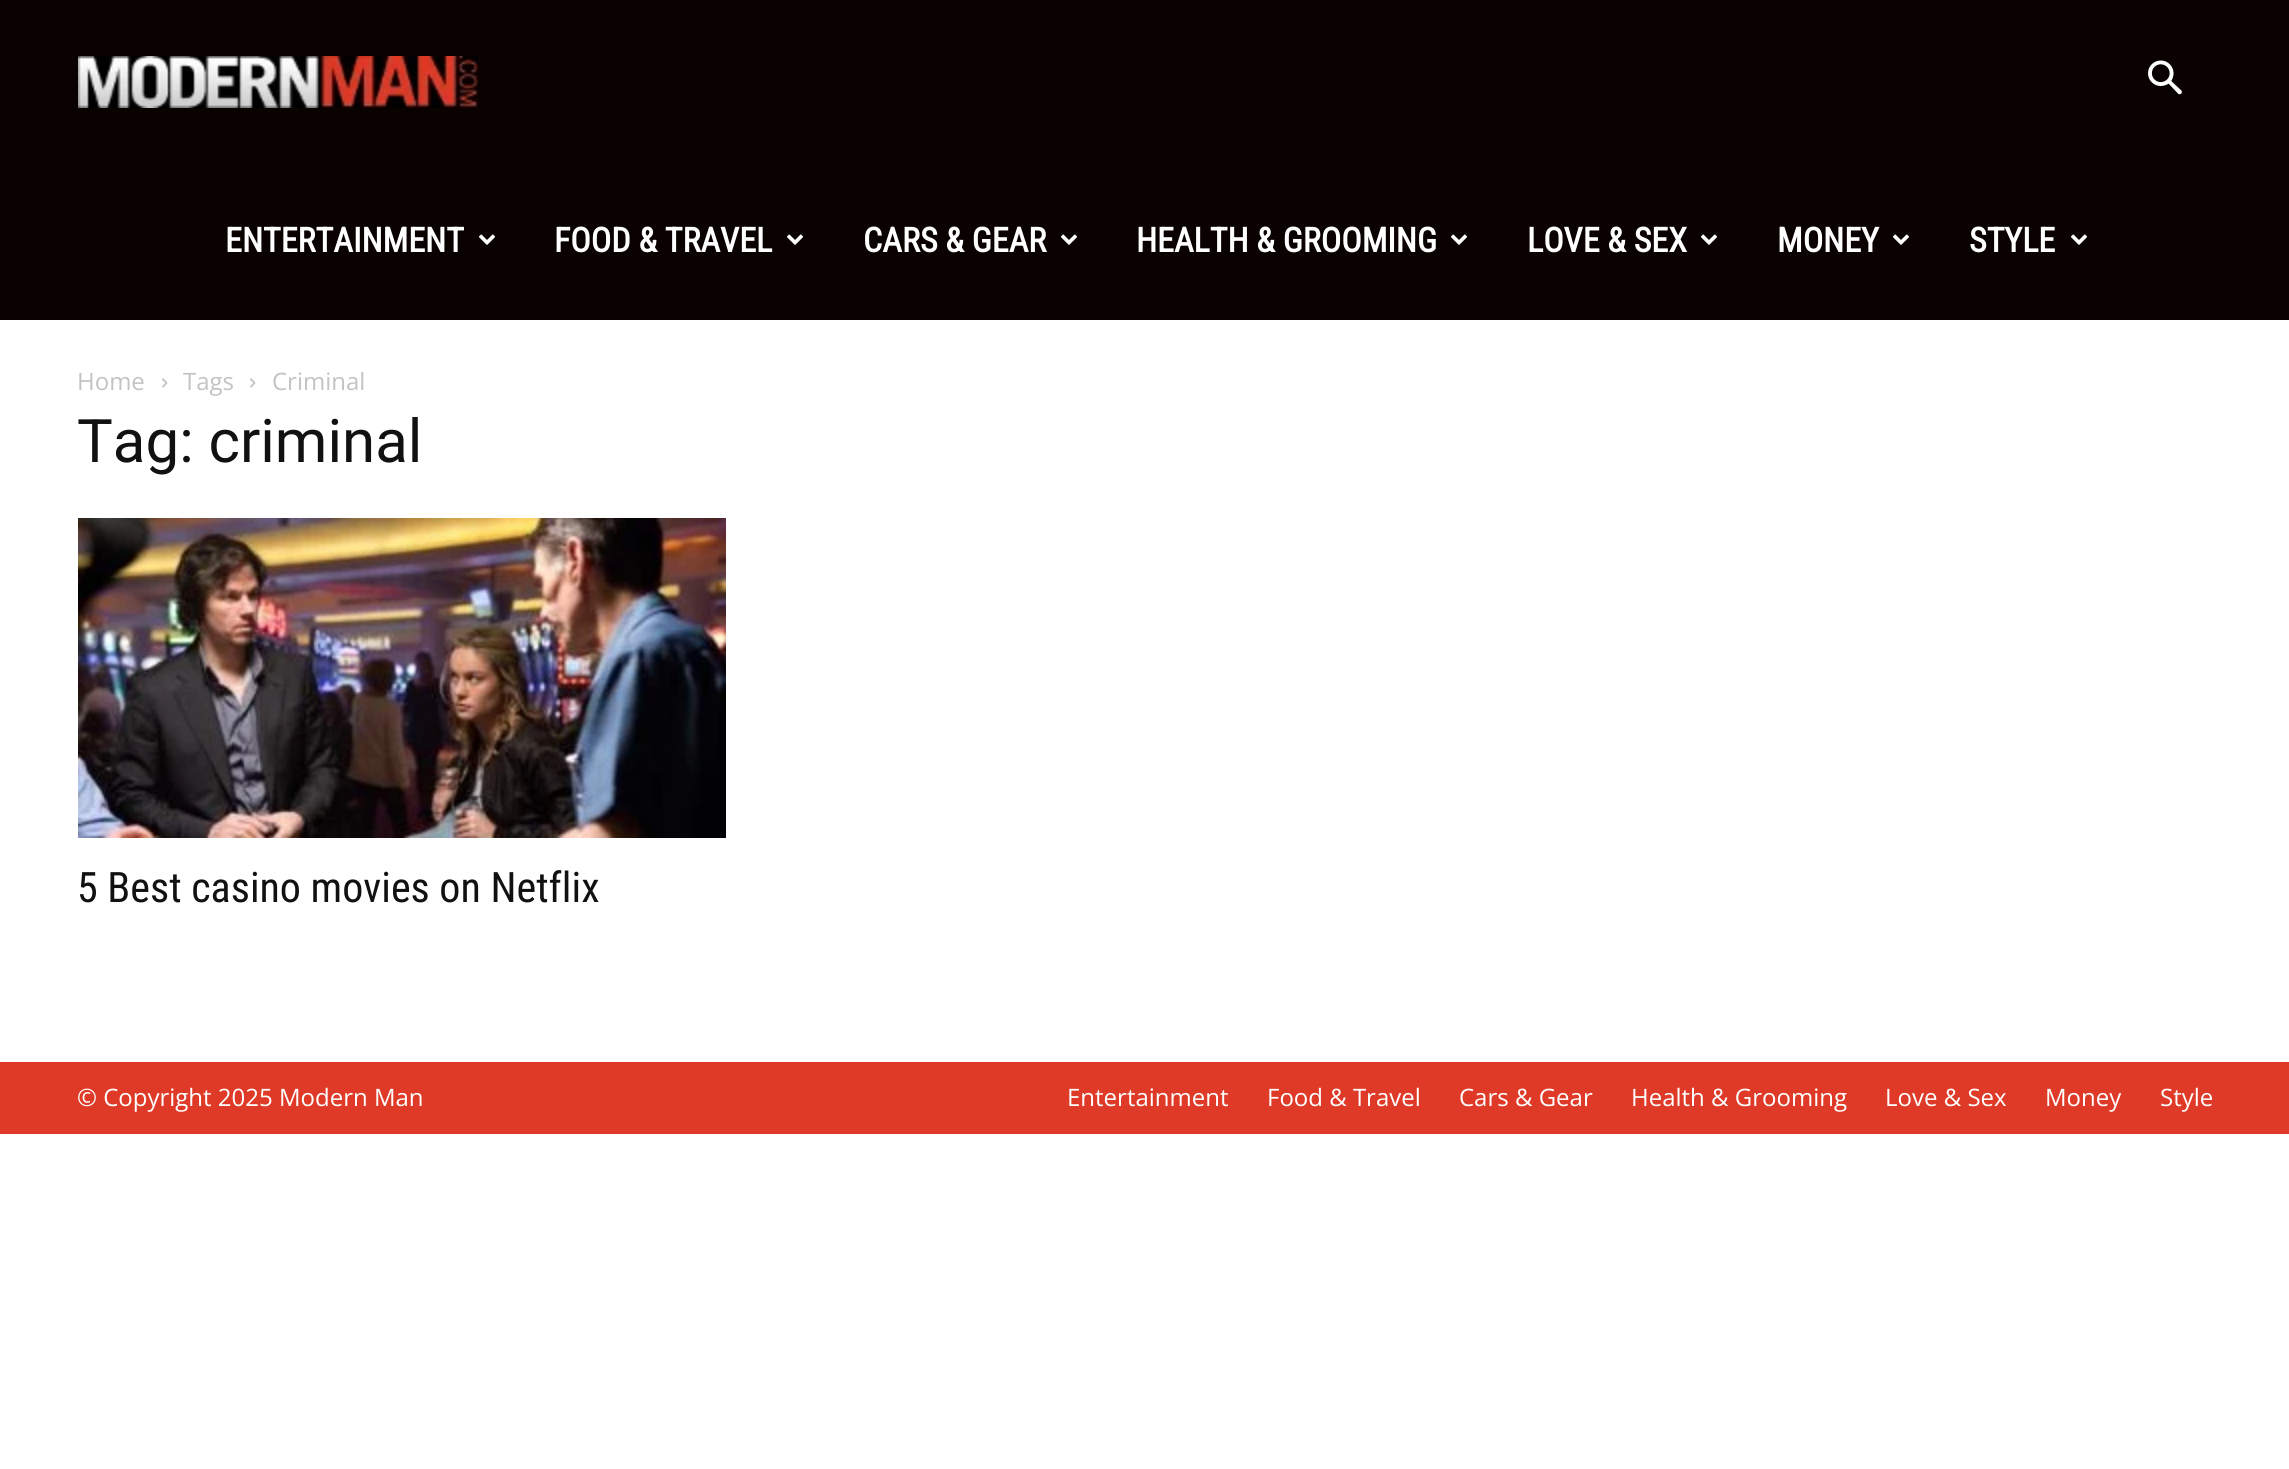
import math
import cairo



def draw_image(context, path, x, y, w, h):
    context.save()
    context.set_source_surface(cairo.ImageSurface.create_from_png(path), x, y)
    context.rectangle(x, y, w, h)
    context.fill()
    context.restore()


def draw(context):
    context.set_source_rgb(1, 1, 1)
    context.paint()
    context.set_source_rgb(10 / 255, 1 / 255, 1 / 255)
    context.rectangle(0, 0, 2289, 320)
    context.fill()
    draw_image(context, "images/1.png", 2148, 60, 34, 35)
    draw_image(context, "images/2.png", 78, 56, 400, 52)
    draw_image(context, "images/3.png", 478, 234, 18, 11)
    draw_image(context, "images/3.png", 786, 234, 18, 11)
    draw_image(context, "images/3.png", 1060, 234, 18, 11)
    draw_image(context, "images/3.png", 1450, 234, 18, 11)
    draw_image(context, "images/3.png", 1700, 234, 18, 11)
    draw_image(context, "images/3.png", 1892, 234, 18, 11)
    draw_image(context, "images/3.png", 2070, 234, 18, 11)
    draw_image(context, "images/4.png", 162, 378, 6, 10)
    draw_image(context, "images/4.png", 250, 378, 6, 10)
    draw_image(context, "images/5.png", 78, 518, 648, 320)
    context.set_source_rgb(223 / 255, 58 / 255, 39 / 255)
    context.rectangle(0, 1062, 2289, 72)
    context.fill()
    context.select_font_face("Roboto Condensed", cairo.FontSlant.NORMAL, cairo.FontWeight.BOLD)
    context.set_font_size(34)
    context.set_source_rgb(1, 1, 1)
    context.move_to(225, 252)
    context.show_text("ENTERTAINMENT")
    context.move_to(554, 252)
    context.show_text("FOOD & TRAVEL")
    context.move_to(863, 252)
    context.show_text("CARS & GEAR")
    context.move_to(1136, 252)
    context.show_text("HEALTH & GROOMING")
    context.move_to(1527, 252)
    context.show_text("LOVE & SEX")
    context.move_to(1777, 252)
    context.show_text("MONEY")
    context.move_to(1969, 252)
    context.show_text("STYLE")
    context.select_font_face("Open Sans")
    context.set_font_size(24)
    context.set_source_rgb(195 / 255, 195 / 255, 195 / 255)
    context.move_to(77, 390)
    context.show_text("Home")
    context.move_to(183, 390)
    context.show_text("Tags")
    context.move_to(272, 390)
    context.show_text("Criminal")
    context.select_font_face("Roboto")
    context.set_font_size(60)
    context.set_source_rgb(17 / 255, 17 / 255, 17 / 255)
    context.move_to(77, 462)
    context.show_text("Tag: criminal")
    context.select_font_face("Roboto Condensed")
    context.set_font_size(42)
    context.move_to(77, 902)
    context.show_text("5 Best casino movies on Netflix")
    context.select_font_face("Open Sans")
    context.set_font_size(24)
    context.set_source_rgb(1, 1, 1)
    context.move_to(77, 1106)
    context.show_text("© Copyright 2025 Modern Man")
    context.move_to(1067, 1106)
    context.show_text("Entertainment")
    context.move_to(1267, 1106)
    context.show_text("Food & Travel")
    context.move_to(1459, 1106)
    context.show_text("Cars & Gear")
    context.move_to(1631, 1106)
    context.show_text("Health & Grooming")
    context.move_to(1885, 1106)
    context.show_text("Love & Sex")
    context.move_to(2045, 1106)
    context.show_text("Money")
    context.move_to(2160, 1106)
    context.show_text("Style")


surface = cairo.ImageSurface(cairo.Format.RGB24, 2289, 1469)
context = cairo.Context(surface)
options = cairo.FontOptions()
options.set_hint_metrics(cairo.HintMetrics.OFF)
options.set_hint_style(cairo.HintStyle.NONE)
context.set_font_options(options)
context.set_miter_limit(4)
draw(context)
surface.write_to_png("out.png")
